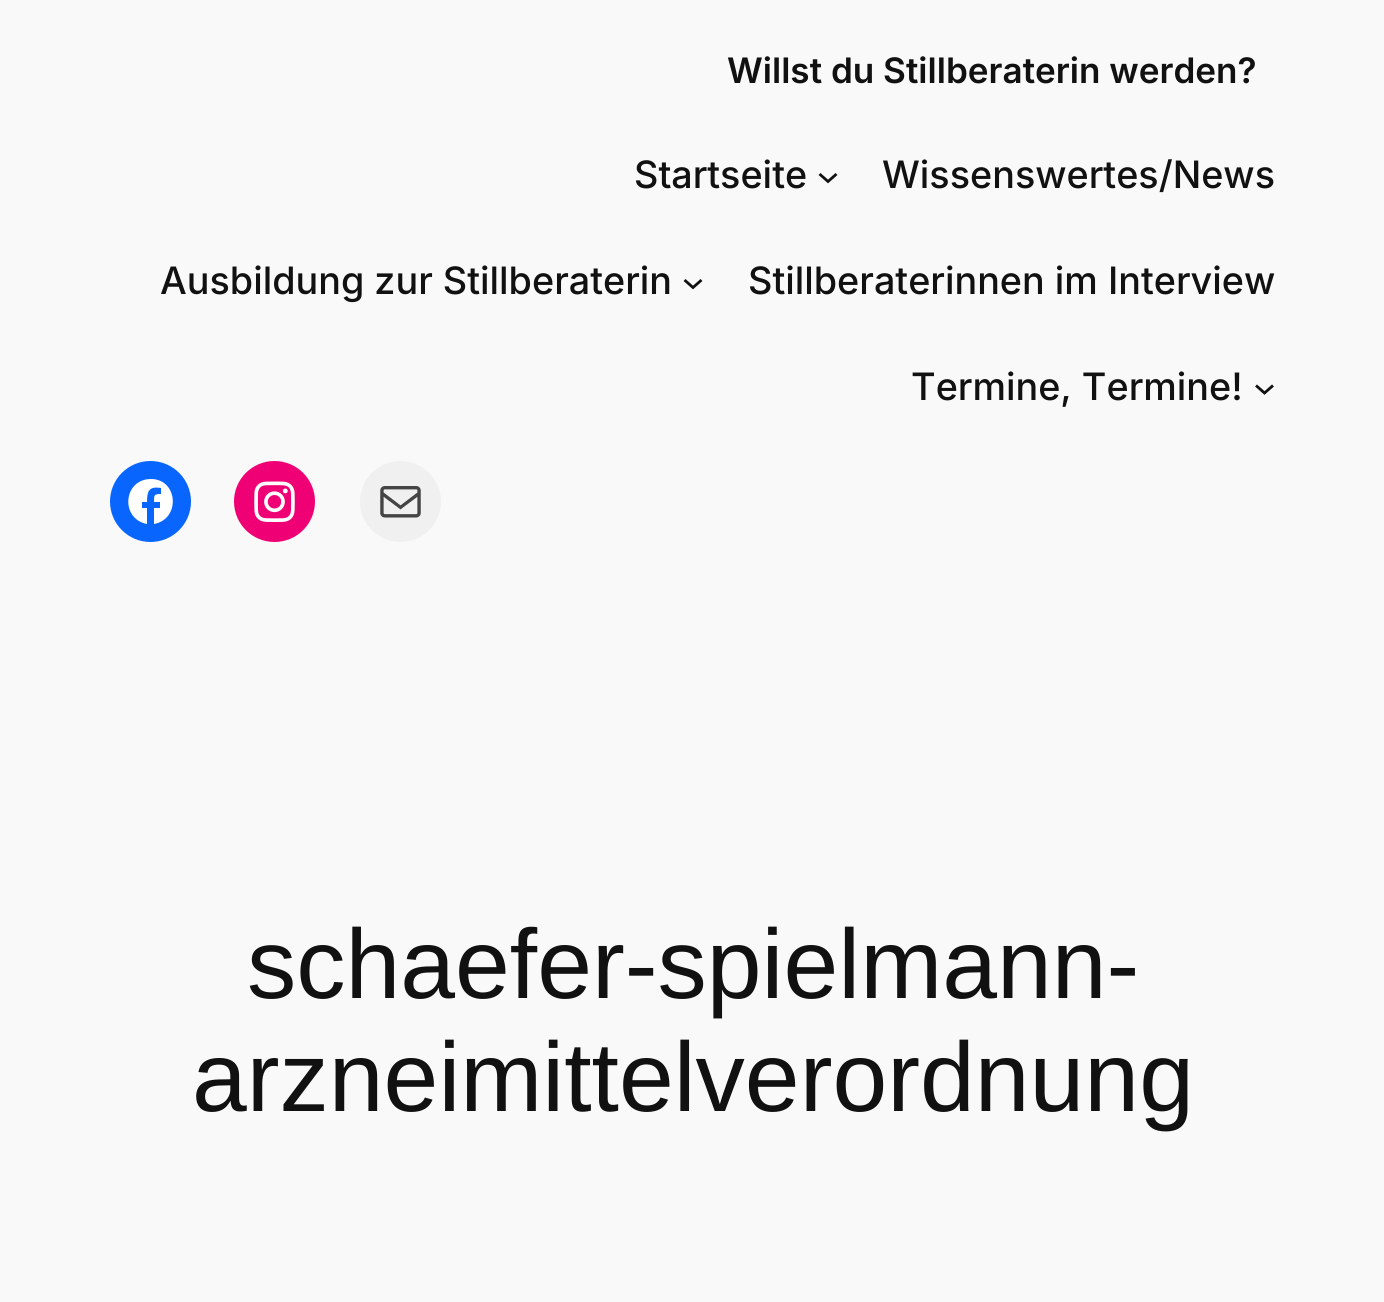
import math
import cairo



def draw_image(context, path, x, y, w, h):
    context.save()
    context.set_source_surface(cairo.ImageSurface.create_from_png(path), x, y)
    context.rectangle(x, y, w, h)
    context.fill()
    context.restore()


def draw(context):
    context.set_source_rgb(249 / 255, 249 / 255, 249 / 255)
    context.paint()
    context.new_path()
    context.move_to(819.5, 174)
    context.line_to(828, 181.5)
    context.line_to(836.5, 174)
    context.set_source_rgb(17 / 255, 17 / 255, 17 / 255)
    context.set_line_width(2.8)
    context.stroke()
    context.new_path()
    context.move_to(684.5, 280)
    context.line_to(693, 287.5)
    context.line_to(701.5, 280)
    context.stroke()
    context.new_path()
    context.move_to(1256, 385.5)
    context.line_to(1264.5, 393)
    context.line_to(1273, 385.5)
    context.stroke()
    context.set_source_rgb(8 / 255, 102 / 255, 1)
    context.arc(150.5, 501.5, 40.5, 0, 2 * math.pi)
    context.fill()
    context.set_source_rgb(1, 1, 1)
    context.new_path()
    context.move_to(151, 479)
    context.curve_to(123, 479, 120, 519, 147, 524)
    context.line_to(147, 508)
    context.line_to(142, 508)
    context.line_to(142, 502)
    context.line_to(147, 502)
    context.curve_to(147, 491, 149, 486, 161, 488)
    context.line_to(161, 494)
    context.curve_to(154, 494, 154, 495, 154, 502)
    context.line_to(160, 502)
    context.line_to(160, 508)
    context.line_to(154, 508)
    context.line_to(154, 524)
    context.curve_to(181, 519, 178, 479, 151, 479)
    context.close_path()
    context.fill()
    context.set_source_rgb(240 / 255, 0, 117 / 255)
    context.arc(274.5, 501.5, 40.5, 0, 2 * math.pi)
    context.fill()
    draw_image(context, "images/1.png", 254, 481, 41, 41)
    context.set_source_rgb(240 / 255, 240 / 255, 240 / 255)
    context.arc(400.5, 501.5, 40.5, 0, 2 * math.pi)
    context.fill()
    draw_image(context, "images/2.png", 380, 486, 41, 32)
    context.select_font_face("Inter SemiBold")
    context.set_font_size(35.1)
    context.set_source_rgb(17 / 255, 17 / 255, 17 / 255)
    context.move_to(727, 83)
    context.show_text("Willst du Stillberaterin werden?")
    context.select_font_face("Inter Medium")
    context.set_font_size(37.75)
    context.move_to(634, 188)
    context.show_text("Startseite")
    context.move_to(882, 188)
    context.show_text("Wissenswertes/News")
    context.move_to(160, 294)
    context.show_text("Ausbildung zur Stillberaterin")
    context.move_to(748, 294)
    context.show_text("Stillberaterinnen im Interview")
    context.move_to(911, 400)
    context.show_text("Termine, Termine!")
    context.select_font_face("Liberation Sans")
    context.set_font_size(98.5)
    context.move_to(247, 998)
    context.show_text("schaefer-spielmann-")
    context.move_to(192, 1111)
    context.show_text("arzneimittelverordnung")


surface = cairo.ImageSurface(cairo.Format.RGB24, 1384, 1302)
context = cairo.Context(surface)
options = cairo.FontOptions()
options.set_hint_metrics(cairo.HintMetrics.OFF)
options.set_hint_style(cairo.HintStyle.NONE)
context.set_font_options(options)
context.set_miter_limit(4)
draw(context)
surface.write_to_png("out.png")
